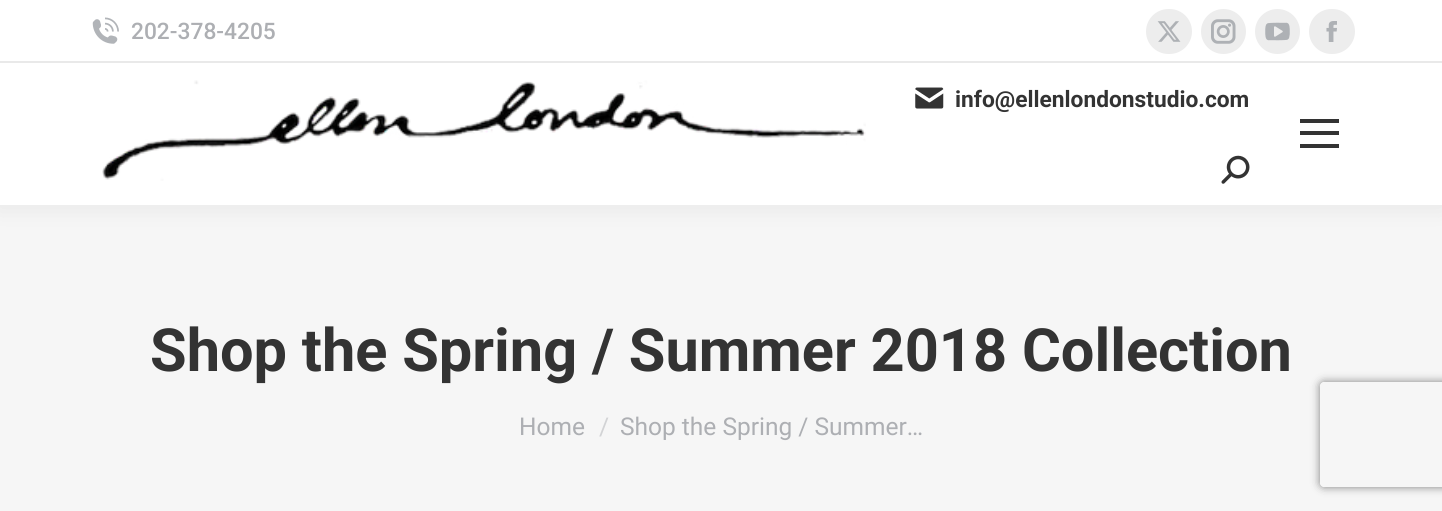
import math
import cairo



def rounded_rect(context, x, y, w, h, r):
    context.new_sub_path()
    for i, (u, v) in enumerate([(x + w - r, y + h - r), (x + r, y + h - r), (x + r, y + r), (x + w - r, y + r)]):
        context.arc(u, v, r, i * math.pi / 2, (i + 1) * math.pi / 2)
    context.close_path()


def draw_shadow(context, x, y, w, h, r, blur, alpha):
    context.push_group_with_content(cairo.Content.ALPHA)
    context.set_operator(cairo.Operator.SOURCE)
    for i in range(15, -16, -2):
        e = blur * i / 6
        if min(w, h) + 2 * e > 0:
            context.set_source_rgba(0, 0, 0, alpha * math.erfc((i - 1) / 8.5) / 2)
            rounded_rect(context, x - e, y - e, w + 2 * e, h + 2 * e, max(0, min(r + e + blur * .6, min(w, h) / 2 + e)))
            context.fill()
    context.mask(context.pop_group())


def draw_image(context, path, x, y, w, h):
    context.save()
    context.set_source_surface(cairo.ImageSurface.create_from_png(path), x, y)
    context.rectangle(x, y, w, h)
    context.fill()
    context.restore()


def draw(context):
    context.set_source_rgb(246 / 255, 246 / 255, 246 / 255)
    context.paint()
    context.set_source_rgb(0, 0, 0)
    draw_shadow(context, -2, -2, 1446, 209, 0, 13, 0.07)
    context.set_source_rgb(1, 1, 1)
    context.rectangle(0, 0, 1442, 205)
    context.fill()
    draw_image(context, "images/1.png", 92, 17, 27, 27)
    context.set_source_rgb(237 / 255, 237 / 255, 237 / 255)
    rounded_rect(context, 1146, 9, 46, 45, 22.5)
    context.fill()
    draw_image(context, "images/2.png", 1157, 21, 24, 21)
    context.arc(1223.5, 31.5, 22.5, 0, 2 * math.pi)
    context.fill()
    draw_image(context, "images/3.png", 1211, 19, 25, 25)
    context.arc(1277.5, 31.5, 22.5, 0, 2 * math.pi)
    context.fill()
    draw_image(context, "images/4.png", 1265, 22, 25, 19)
    rounded_rect(context, 1309, 9, 46, 45, 22.5)
    context.fill()
    draw_image(context, "images/5.png", 1326, 21, 11, 21)
    context.set_source_rgb(233 / 255, 233 / 255, 233 / 255)
    context.rectangle(0, 61, 1442, 2)
    context.fill()
    draw_image(context, "images/6.png", 102, 80, 764, 101)
    draw_image(context, "images/7.png", 915, 87, 29, 22)
    draw_image(context, "images/8.png", 1221, 155, 29, 29)
    context.set_source_rgb(51 / 255, 51 / 255, 51 / 255)
    context.rectangle(1300, 119, 39, 4)
    context.fill()
    context.rectangle(1300, 131, 39, 4)
    context.fill()
    context.rectangle(1300, 144, 39, 4)
    context.fill()
    context.save()
    context.set_fill_rule(cairo.FillRule.EVEN_ODD)
    context.new_path()
    context.move_to(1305, 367)
    context.line_to(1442, 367)
    context.line_to(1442, 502)
    context.line_to(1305, 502)
    context.close_path()
    context.move_to(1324, 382)
    context.line_to(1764, 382)
    context.curve_to(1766, 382, 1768, 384, 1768, 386)
    context.line_to(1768, 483)
    context.curve_to(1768, 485, 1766, 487, 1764, 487)
    context.line_to(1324, 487)
    context.curve_to(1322, 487, 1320, 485, 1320, 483)
    context.line_to(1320, 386)
    context.curve_to(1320, 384, 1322, 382, 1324, 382)
    context.close_path()
    context.clip()
    context.set_source_rgb(128 / 255, 128 / 255, 128 / 255)
    draw_shadow(context, 1320, 382, 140, 105, 4, 4.5, 1)
    context.restore()
    context.select_font_face("Roboto Medium")
    context.set_font_size(22.75)
    context.set_source_rgb(173 / 255, 175 / 255, 179 / 255)
    context.move_to(131, 39)
    context.show_text("202-378-4205")
    context.select_font_face("Roboto", cairo.FontSlant.NORMAL, cairo.FontWeight.BOLD)
    context.set_source_rgb(51 / 255, 51 / 255, 51 / 255)
    context.move_to(955, 107)
    context.show_text("info@ellenlondonstudio.com")
    context.set_font_size(59.5)
    context.move_to(150, 371)
    context.show_text("Shop the Spring / Summer 2018 Collection")
    context.select_font_face("Roboto")
    context.set_font_size(24.5)
    context.set_source_rgb(173 / 255, 175 / 255, 179 / 255)
    context.move_to(519, 435)
    context.show_text("Home")
    context.set_source_rgb(210 / 255, 211 / 255, 213 / 255)
    context.move_to(599, 435)
    context.show_text("/")
    context.set_source_rgb(173 / 255, 175 / 255, 179 / 255)
    context.move_to(620, 435)
    context.show_text("Shop the Spring / Summer…")


surface = cairo.ImageSurface(cairo.Format.RGB24, 1442, 511)
context = cairo.Context(surface)
options = cairo.FontOptions()
options.set_hint_metrics(cairo.HintMetrics.OFF)
options.set_hint_style(cairo.HintStyle.NONE)
context.set_font_options(options)
context.set_miter_limit(4)
draw(context)
surface.write_to_png("out.png")
